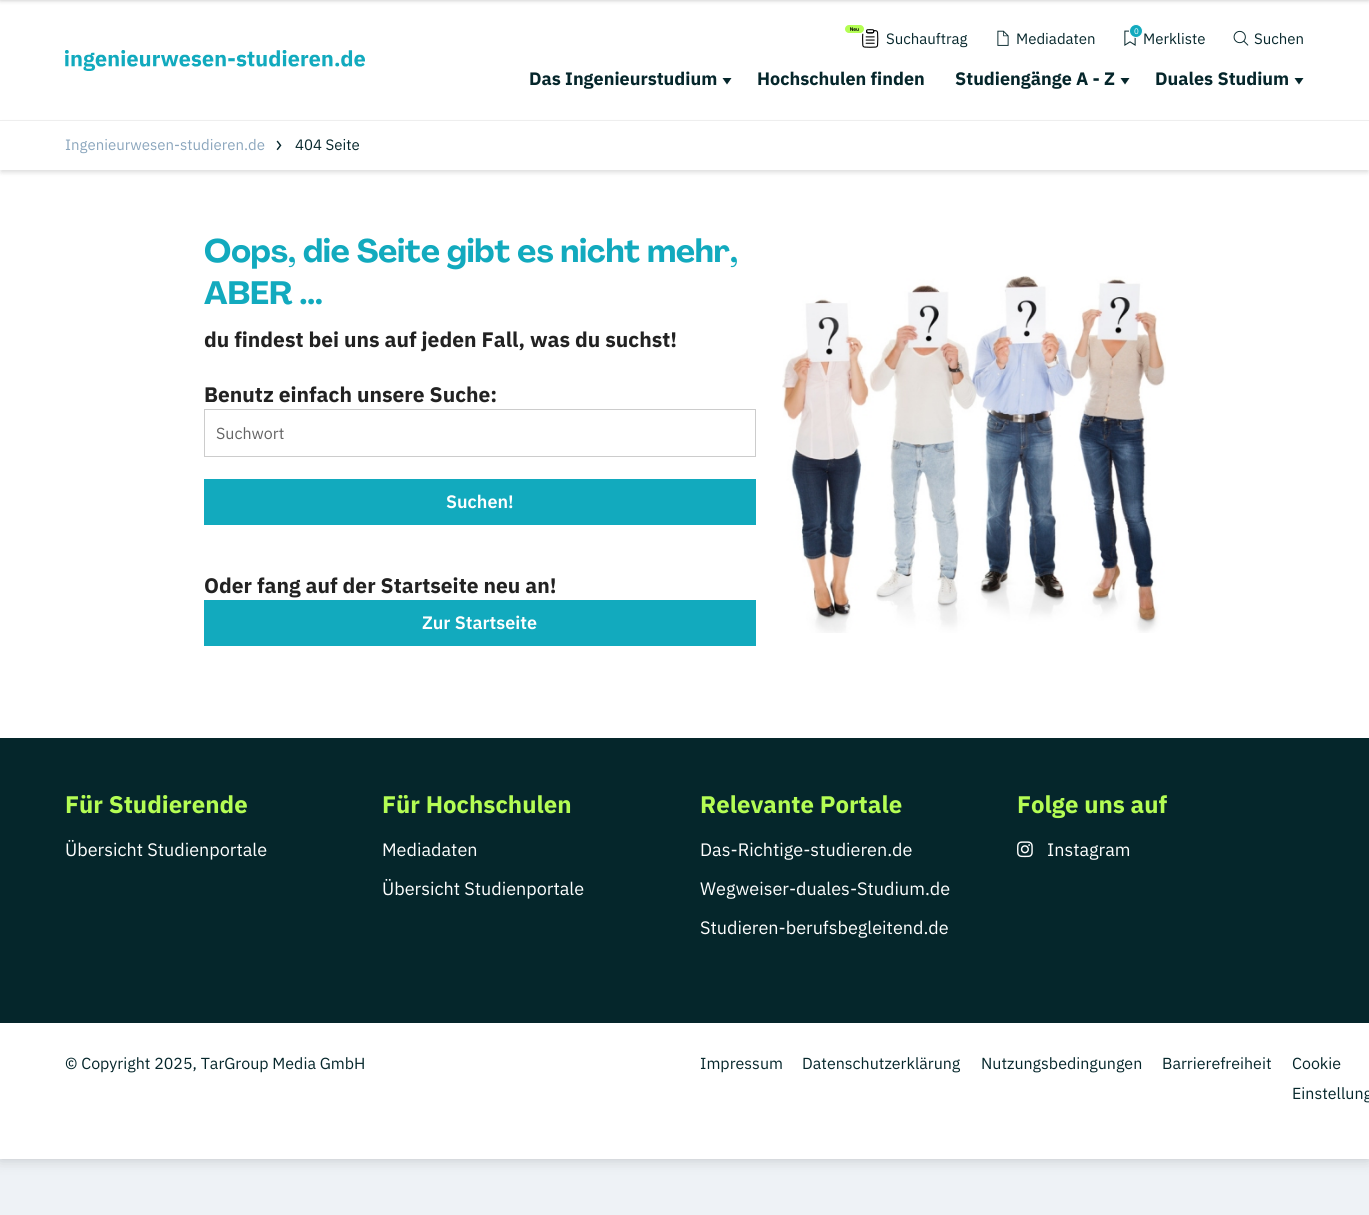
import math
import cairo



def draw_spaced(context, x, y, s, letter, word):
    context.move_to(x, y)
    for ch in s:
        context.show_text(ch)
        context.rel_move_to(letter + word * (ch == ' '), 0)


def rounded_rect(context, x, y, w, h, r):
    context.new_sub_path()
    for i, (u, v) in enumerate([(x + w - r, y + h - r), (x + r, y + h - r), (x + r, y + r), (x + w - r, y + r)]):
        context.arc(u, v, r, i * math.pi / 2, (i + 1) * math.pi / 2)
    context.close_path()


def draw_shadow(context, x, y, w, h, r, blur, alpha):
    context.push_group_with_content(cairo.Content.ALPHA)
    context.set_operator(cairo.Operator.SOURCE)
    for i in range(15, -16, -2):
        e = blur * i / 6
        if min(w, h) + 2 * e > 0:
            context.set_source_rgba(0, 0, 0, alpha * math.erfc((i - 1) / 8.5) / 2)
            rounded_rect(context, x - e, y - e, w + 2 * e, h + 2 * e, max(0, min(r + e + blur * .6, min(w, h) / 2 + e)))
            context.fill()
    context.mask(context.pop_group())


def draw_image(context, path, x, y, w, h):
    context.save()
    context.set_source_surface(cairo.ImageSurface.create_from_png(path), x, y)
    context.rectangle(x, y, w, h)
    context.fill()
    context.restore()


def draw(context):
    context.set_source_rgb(238 / 255, 242 / 255, 246 / 255)
    context.paint()
    context.set_source_rgb(0, 0, 0)
    draw_shadow(context, 0, 0, 1369, 1159, 0, 7.5, 0.2)
    context.set_source_rgb(1, 1, 1)
    context.rectangle(0, 0, 1369, 120)
    context.fill()
    context.set_source_rgb(0, 0, 0)
    draw_shadow(context, 0, -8, 1369, 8, 0, 2.5, 0.25)
    draw_image(context, "images/1.png", 65, 50, 300, 21)
    draw_image(context, "images/2.png", 845, 25, 34, 23)
    draw_image(context, "images/3.png", 997, 30, 12, 16)
    draw_image(context, "images/4.png", 1124, 30, 12, 16)
    context.set_source_rgb(18 / 255, 170 / 255, 190 / 255)
    context.arc(1136, 31, 6.5, 0, 2 * math.pi)
    context.fill_preserve()
    context.set_source_rgb(1, 1, 1)
    context.set_line_width(1)
    context.stroke()
    draw_image(context, "images/5.png", 1233, 30, 16, 16)
    context.set_source_rgb(5 / 255, 38 / 255, 43 / 255)
    context.new_path()
    context.move_to(731.5, 78)
    context.line_to(727, 84.5)
    context.line_to(722.5, 78)
    context.close_path()
    context.fill()
    context.new_path()
    context.move_to(1129.5, 78)
    context.line_to(1125, 84.5)
    context.line_to(1120.5, 78)
    context.close_path()
    context.fill()
    context.new_path()
    context.move_to(1303.5, 78)
    context.line_to(1299, 84.5)
    context.line_to(1294.5, 78)
    context.close_path()
    context.fill()
    context.set_source_rgb(1, 1, 1)
    context.rectangle(0, 170, 1369, 568)
    context.fill()
    context.set_source_rgb(0, 0, 0)
    draw_shadow(context, 1, 124, 1367, 48, 0, 2.5, 0.15)
    context.set_source_rgb(1, 1, 1)
    context.rectangle(0, 121, 1369, 49)
    context.fill()
    context.set_source_rgb(238 / 255, 238 / 255, 238 / 255)
    context.rectangle(0, 120, 1369, 1)
    context.fill()
    draw_image(context, "images/6.png", 276, 140, 6, 11)
    context.rectangle(204.5, 409.5, 551, 47)
    context.set_source_rgb(204 / 255, 204 / 255, 204 / 255)
    context.stroke()
    context.set_source_rgb(18 / 255, 170 / 255, 190 / 255)
    context.rectangle(204, 479, 552, 46)
    context.fill()
    context.rectangle(204, 600, 552, 46)
    context.fill()
    draw_image(context, "images/7.png", 782, 275, 384, 358)
    context.set_source_rgb(5 / 255, 38 / 255, 43 / 255)
    context.rectangle(0, 738, 1369, 285)
    context.fill()
    draw_image(context, "images/8.png", 1017, 841, 16, 17)
    context.set_source_rgb(1, 1, 1)
    context.rectangle(0, 1023, 1369, 136)
    context.fill()
    context.select_font_face("IBM Plex Sans")
    context.set_font_size(15)
    context.set_source_rgb(5 / 255, 38 / 255, 43 / 255)
    context.move_to(886, 44)
    context.show_text("Suchauftrag")
    context.move_to(1016, 44)
    context.show_text("Mediadaten")
    context.set_font_size(8)
    context.set_source_rgb(1, 1, 1)
    draw_spaced(context, 1134, 34, "0", -1, 0)
    context.set_font_size(15)
    context.set_source_rgb(5 / 255, 38 / 255, 43 / 255)
    context.move_to(1143, 44)
    context.show_text("Merkliste")
    context.move_to(1254, 44)
    context.show_text("Suchen")
    context.select_font_face("IBM Plex Sans", cairo.FontSlant.NORMAL, cairo.FontWeight.BOLD)
    context.set_font_size(18)
    context.move_to(529, 85)
    context.show_text("Das Ingenieurstudium")
    context.move_to(757, 85)
    context.show_text("Hochschulen finden")
    context.move_to(955, 85)
    context.show_text("Studiengänge A - Z")
    context.move_to(1155, 85)
    context.show_text("Duales Studium")
    context.select_font_face("IBM Plex Sans")
    context.set_font_size(15)
    context.set_source_rgb(139 / 255, 166 / 255, 189 / 255)
    context.move_to(65, 150)
    context.show_text("Ingenieurwesen-studieren.de")
    context.set_source_rgb(5 / 255, 38 / 255, 43 / 255)
    context.move_to(295, 150)
    context.show_text("404 Seite")
    context.select_font_face("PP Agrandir", cairo.FontSlant.NORMAL, cairo.FontWeight.BOLD)
    context.set_font_size(32)
    context.set_source_rgb(18 / 255, 170 / 255, 190 / 255)
    context.move_to(204, 262)
    context.show_text("Oops, die Seite gibt es nicht mehr,")
    context.move_to(204, 304)
    context.show_text("ABER ...")
    context.select_font_face("IBM Plex Sans", cairo.FontSlant.NORMAL, cairo.FontWeight.BOLD)
    context.set_font_size(21)
    context.set_source_rgb(34 / 255, 34 / 255, 34 / 255)
    context.move_to(204, 347)
    context.show_text("du findest bei uns auf jeden Fall, was du suchst!")
    context.move_to(204, 402)
    context.show_text("Benutz einfach unsere Suche:")
    context.select_font_face("IBM Plex Sans")
    context.set_font_size(16)
    context.set_source_rgb(100 / 255, 100 / 255, 100 / 255)
    context.move_to(216, 439)
    context.show_text("Suchwort")
    context.select_font_face("IBM Plex Sans SemiBold")
    context.set_font_size(18)
    context.set_source_rgb(1, 1, 1)
    context.move_to(446, 508)
    context.show_text("Suchen!")
    context.select_font_face("IBM Plex Sans", cairo.FontSlant.NORMAL, cairo.FontWeight.BOLD)
    context.set_font_size(21)
    context.set_source_rgb(34 / 255, 34 / 255, 34 / 255)
    context.move_to(204, 593)
    context.show_text("Oder fang auf der Startseite neu an!")
    context.select_font_face("IBM Plex Sans SemiBold")
    context.set_font_size(18)
    context.set_source_rgb(1, 1, 1)
    context.move_to(422, 629)
    context.show_text("Zur Startseite")
    context.select_font_face("IBM Plex Sans", cairo.FontSlant.NORMAL, cairo.FontWeight.BOLD)
    context.set_font_size(24)
    context.set_source_rgb(180 / 255, 253 / 255, 84 / 255)
    context.move_to(65, 813)
    context.show_text("Für Studierende")
    context.select_font_face("IBM Plex Sans")
    context.set_font_size(18)
    context.set_source_rgb(1, 1, 1)
    context.move_to(65, 856)
    context.show_text("Übersicht Studienportale")
    context.select_font_face("IBM Plex Sans", cairo.FontSlant.NORMAL, cairo.FontWeight.BOLD)
    context.set_font_size(24)
    context.set_source_rgb(180 / 255, 253 / 255, 84 / 255)
    context.move_to(382, 813)
    context.show_text("Für Hochschulen")
    context.select_font_face("IBM Plex Sans")
    context.set_font_size(18)
    context.set_source_rgb(1, 1, 1)
    context.move_to(382, 856)
    context.show_text("Mediadaten")
    context.move_to(382, 895)
    context.show_text("Übersicht Studienportale")
    context.select_font_face("IBM Plex Sans", cairo.FontSlant.NORMAL, cairo.FontWeight.BOLD)
    context.set_font_size(24)
    context.set_source_rgb(180 / 255, 253 / 255, 84 / 255)
    context.move_to(700, 813)
    context.show_text("Relevante Portale")
    context.select_font_face("IBM Plex Sans")
    context.set_font_size(18)
    context.set_source_rgb(1, 1, 1)
    context.move_to(700, 856)
    context.show_text("Das-Richtige-studieren.de")
    context.move_to(700, 895)
    context.show_text("Wegweiser-duales-Studium.de")
    context.move_to(700, 934)
    context.show_text("Studieren-berufsbegleitend.de")
    context.select_font_face("IBM Plex Sans", cairo.FontSlant.NORMAL, cairo.FontWeight.BOLD)
    context.set_font_size(24)
    context.set_source_rgb(180 / 255, 253 / 255, 84 / 255)
    context.move_to(1017, 813)
    context.show_text("Folge uns auf")
    context.select_font_face("IBM Plex Sans")
    context.set_font_size(18)
    context.set_source_rgb(1, 1, 1)
    context.move_to(1047, 856)
    context.show_text("Instagram")
    context.set_font_size(16)
    context.set_source_rgb(5 / 255, 38 / 255, 43 / 255)
    context.move_to(65, 1069)
    context.show_text("© Copyright 2025, TarGroup Media GmbH")
    context.move_to(700, 1069)
    context.show_text("Impressum")
    context.move_to(802, 1069)
    context.show_text("Datenschutzerklärung")
    context.move_to(981, 1069)
    context.show_text("Nutzungsbedingungen")
    context.move_to(1162, 1069)
    context.show_text("Barrierefreiheit")
    context.move_to(1292, 1069)
    context.show_text("Cookie")
    context.move_to(1292, 1099)
    context.show_text("Einstellung")


surface = cairo.ImageSurface(cairo.Format.RGB24, 1369, 1215)
context = cairo.Context(surface)
options = cairo.FontOptions()
options.set_hint_metrics(cairo.HintMetrics.OFF)
options.set_hint_style(cairo.HintStyle.NONE)
context.set_font_options(options)
context.set_miter_limit(4)
draw(context)
surface.write_to_png("out.png")
